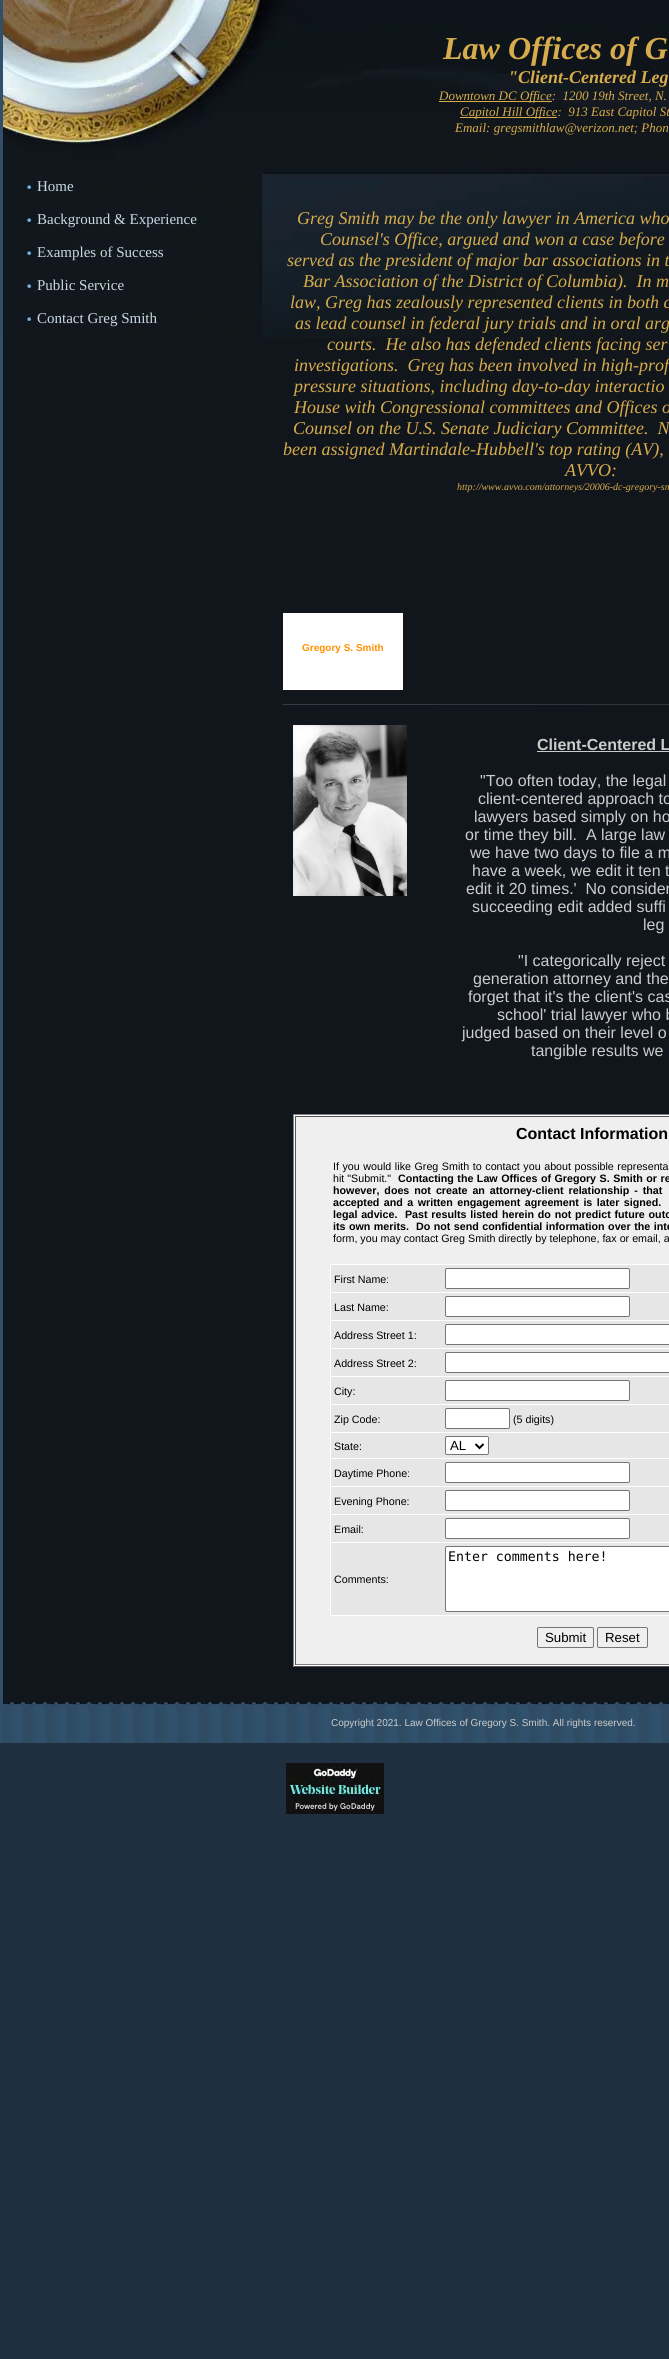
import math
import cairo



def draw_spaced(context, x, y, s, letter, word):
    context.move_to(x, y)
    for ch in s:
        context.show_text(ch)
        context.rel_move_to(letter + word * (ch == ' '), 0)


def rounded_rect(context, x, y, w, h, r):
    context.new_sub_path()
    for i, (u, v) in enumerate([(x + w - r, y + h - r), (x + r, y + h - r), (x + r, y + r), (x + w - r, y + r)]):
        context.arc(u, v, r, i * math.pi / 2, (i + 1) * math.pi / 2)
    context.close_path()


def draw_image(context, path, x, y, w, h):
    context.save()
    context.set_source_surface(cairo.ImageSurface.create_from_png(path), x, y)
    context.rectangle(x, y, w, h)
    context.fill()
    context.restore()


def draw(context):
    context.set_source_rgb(31 / 255, 47 / 255, 63 / 255)
    context.paint()
    context.set_source_rgb(17 / 255, 22 / 255, 28 / 255)
    context.rectangle(3, 338, 666, 1364)
    context.fill()
    draw_image(context, "images/1.png", 3, 0, 666, 338)
    context.set_source_rgb(48 / 255, 79 / 255, 107 / 255)
    context.rectangle(0, 0, 3, 1743)
    context.fill()
    context.set_source_rgb(215 / 255, 172 / 255, 76 / 255)
    context.rectangle(439, 101, 113, 1)
    context.fill()
    context.rectangle(460, 117, 97, 1)
    context.fill()
    draw_image(context, "images/2.png", 27, 183, 8, 8)
    draw_image(context, "images/2.png", 27, 216, 8, 8)
    draw_image(context, "images/2.png", 27, 249, 8, 8)
    draw_image(context, "images/2.png", 27, 282, 8, 8)
    draw_image(context, "images/2.png", 27, 315, 8, 8)
    draw_image(context, "images/3.png", 283, 704, 386, 1)
    context.set_source_rgb(1, 1, 1)
    context.rectangle(283, 613, 120, 77)
    context.fill()
    draw_image(context, "images/4.png", 293, 725, 114, 171)
    context.set_source_rgb(204 / 255, 204 / 255, 204 / 255)
    context.rectangle(537, 751, 132, 1)
    context.fill()
    context.set_source_rgb(1, 1, 1)
    context.rectangle(294, 1115, 375, 551)
    context.fill()
    context.set_source_rgb(128 / 255, 128 / 255, 128 / 255)
    context.rectangle(293, 1114, 376, 1)
    context.fill()
    context.set_source_rgb(85 / 255, 85 / 255, 85 / 255)
    context.rectangle(293, 1666, 376, 1)
    context.fill()
    context.set_source_rgb(128 / 255, 128 / 255, 128 / 255)
    context.rectangle(293, 1114, 1, 553)
    context.fill()
    context.set_source_rgb(239 / 255, 239 / 255, 239 / 255)
    context.rectangle(296, 1117, 373, 547)
    context.fill()
    context.set_source_rgb(85 / 255, 85 / 255, 85 / 255)
    context.rectangle(295, 1116, 374, 1)
    context.fill()
    context.set_source_rgb(128 / 255, 128 / 255, 128 / 255)
    context.rectangle(295, 1664, 374, 1)
    context.fill()
    context.set_source_rgb(85 / 255, 85 / 255, 85 / 255)
    context.rectangle(295, 1116, 1, 549)
    context.fill()
    context.set_source_rgb(1, 1, 1)
    context.rectangle(330, 1264, 339, 352)
    context.fill()
    context.set_source_rgb(230 / 255, 230 / 255, 230 / 255)
    context.rectangle(331, 1265, 338, 27)
    context.fill()
    context.set_source_rgb(1, 1, 1)
    rounded_rect(context, 445.5, 1268.5, 184, 20, 1.5)
    context.fill_preserve()
    context.set_source_rgb(118 / 255, 118 / 255, 118 / 255)
    context.set_line_width(1)
    context.stroke()
    context.set_source_rgb(230 / 255, 230 / 255, 230 / 255)
    context.rectangle(331, 1293, 338, 27)
    context.fill()
    context.set_source_rgb(1, 1, 1)
    rounded_rect(context, 445.5, 1296.5, 184, 20, 1.5)
    context.fill_preserve()
    context.set_source_rgb(118 / 255, 118 / 255, 118 / 255)
    context.stroke()
    context.set_source_rgb(230 / 255, 230 / 255, 230 / 255)
    context.rectangle(331, 1321, 338, 27)
    context.fill()
    context.set_source_rgb(1, 1, 1)
    rounded_rect(context, 445.5, 1324.5, 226, 20, 1.5)
    context.fill_preserve()
    context.set_source_rgb(118 / 255, 118 / 255, 118 / 255)
    context.stroke()
    context.set_source_rgb(230 / 255, 230 / 255, 230 / 255)
    context.rectangle(331, 1349, 338, 27)
    context.fill()
    context.set_source_rgb(1, 1, 1)
    rounded_rect(context, 445.5, 1352.5, 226, 20, 1.5)
    context.fill_preserve()
    context.set_source_rgb(118 / 255, 118 / 255, 118 / 255)
    context.stroke()
    context.set_source_rgb(230 / 255, 230 / 255, 230 / 255)
    context.rectangle(331, 1377, 338, 27)
    context.fill()
    context.set_source_rgb(1, 1, 1)
    rounded_rect(context, 445.5, 1380.5, 184, 20, 1.5)
    context.fill_preserve()
    context.set_source_rgb(118 / 255, 118 / 255, 118 / 255)
    context.stroke()
    context.set_source_rgb(230 / 255, 230 / 255, 230 / 255)
    context.rectangle(331, 1405, 338, 27)
    context.fill()
    context.set_source_rgb(1, 1, 1)
    rounded_rect(context, 445.5, 1408.5, 64, 20, 1.5)
    context.fill_preserve()
    context.set_source_rgb(118 / 255, 118 / 255, 118 / 255)
    context.stroke()
    context.set_source_rgb(230 / 255, 230 / 255, 230 / 255)
    context.rectangle(331, 1433, 338, 25)
    context.fill()
    context.set_source_rgb(1, 1, 1)
    rounded_rect(context, 445.5, 1436.5, 43, 18, 1.5)
    context.fill_preserve()
    context.set_source_rgb(118 / 255, 118 / 255, 118 / 255)
    context.stroke()
    context.new_path()
    context.move_to(475.5, 1444)
    context.line_to(479.5, 1448)
    context.line_to(483.5, 1444)
    context.set_source_rgb(0, 0, 0)
    context.set_line_width(2)
    context.stroke()
    context.set_source_rgb(230 / 255, 230 / 255, 230 / 255)
    context.rectangle(331, 1459, 338, 27)
    context.fill()
    context.set_source_rgb(1, 1, 1)
    rounded_rect(context, 445.5, 1462.5, 184, 20, 1.5)
    context.fill_preserve()
    context.set_source_rgb(118 / 255, 118 / 255, 118 / 255)
    context.set_line_width(1)
    context.stroke()
    context.set_source_rgb(230 / 255, 230 / 255, 230 / 255)
    context.rectangle(331, 1487, 338, 27)
    context.fill()
    context.set_source_rgb(1, 1, 1)
    rounded_rect(context, 445.5, 1490.5, 184, 20, 1.5)
    context.fill_preserve()
    context.set_source_rgb(118 / 255, 118 / 255, 118 / 255)
    context.stroke()
    context.set_source_rgb(230 / 255, 230 / 255, 230 / 255)
    context.rectangle(331, 1515, 338, 27)
    context.fill()
    context.set_source_rgb(1, 1, 1)
    rounded_rect(context, 445.5, 1518.5, 184, 20, 1.5)
    context.fill_preserve()
    context.set_source_rgb(118 / 255, 118 / 255, 118 / 255)
    context.stroke()
    context.set_source_rgb(230 / 255, 230 / 255, 230 / 255)
    context.rectangle(331, 1543, 338, 72)
    context.fill()
    context.set_source_rgb(1, 1, 1)
    rounded_rect(context, 445.5, 1546.5, 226, 65, 1.5)
    context.fill_preserve()
    context.set_source_rgb(118 / 255, 118 / 255, 118 / 255)
    context.stroke()
    rounded_rect(context, 537.5, 1627.5, 56, 20, 1.5)
    context.stroke()
    rounded_rect(context, 597.5, 1627.5, 50, 20, 1.5)
    context.stroke()
    draw_image(context, "images/5.png", 3, 1702, 666, 5)
    draw_image(context, "images/6.png", 3, 1707, 666, 36)
    draw_image(context, "images/7.png", 286, 1763, 98, 51)
    context.select_font_face("Liberation Serif", cairo.FontSlant.ITALIC, cairo.FontWeight.BOLD)
    context.set_font_size(32)
    context.set_source_rgb(215 / 255, 172 / 255, 76 / 255)
    context.move_to(443, 59)
    context.show_text("Law Offices of G")
    context.set_font_size(18)
    context.move_to(508, 83)
    context.show_text("\"Client-Centered Leg")
    context.select_font_face("Liberation Serif", cairo.FontSlant.ITALIC)
    context.set_font_size(13)
    context.move_to(439, 100)
    context.show_text("Downtown DC Office:  1200 19th Street, N.")
    context.move_to(460, 116)
    context.show_text("Capitol Hill Office:  913 East Capitol St")
    context.move_to(455, 132)
    context.show_text("Email: gregsmithlaw@verizon.net; Phon")
    context.select_font_face("Liberation Serif")
    context.set_font_size(15)
    context.set_source_rgb(202 / 255, 217 / 255, 231 / 255)
    context.move_to(37, 191)
    context.show_text("Home")
    context.move_to(37, 224)
    context.show_text("Background & Experience")
    context.move_to(37, 257)
    context.show_text("Examples of Success")
    context.move_to(37, 290)
    context.show_text("Public Service")
    context.move_to(37, 323)
    context.show_text("Contact Greg Smith")
    context.select_font_face("Liberation Serif", cairo.FontSlant.ITALIC)
    context.set_font_size(18)
    context.set_source_rgb(215 / 255, 172 / 255, 76 / 255)
    context.move_to(297, 224)
    context.show_text("Greg Smith may be the only lawyer in America who")
    context.move_to(320, 245)
    context.show_text("Counsel's Office, argued and won a case before")
    context.move_to(287, 266)
    context.show_text("served as the president of major bar associations in t")
    context.move_to(303, 287)
    context.show_text("Bar Association of the District of Columbia).  In m")
    context.move_to(290, 308)
    context.show_text("law, Greg has zealously represented clients in both c")
    context.move_to(295, 329)
    context.show_text("as lead counsel in federal jury trials and in oral arg")
    context.move_to(327, 350)
    context.show_text("courts.  He also has defended clients facing ser")
    context.move_to(294, 371)
    context.show_text("investigations.  Greg has been involved in high-prof")
    context.move_to(294, 392)
    context.show_text("pressure situations, including day-to-day interactio")
    context.move_to(294, 413)
    context.show_text("House with Congressional committees and Offices o")
    context.move_to(293, 434)
    context.show_text("Counsel on the U.S. Senate Judiciary Committee.  N")
    context.move_to(283, 455)
    context.show_text("been assigned Martindale-Hubbell's top rating (AV),")
    context.move_to(565, 476)
    context.show_text("AVVO:")
    context.set_font_size(10)
    context.move_to(457, 490)
    context.show_text("http://www.avvo.com/attorneys/20006-dc-gregory-sm")
    context.select_font_face("Liberation Sans", cairo.FontSlant.NORMAL, cairo.FontWeight.BOLD)
    context.set_source_rgb(1, 145 / 255, 0)
    context.move_to(302, 651)
    context.show_text("Gregory S. Smith")
    context.set_font_size(16)
    context.set_source_rgb(204 / 255, 204 / 255, 204 / 255)
    context.move_to(537, 750)
    context.show_text("Client-Centered L")
    context.select_font_face("Liberation Sans")
    context.move_to(480, 786)
    context.show_text("\"Too often today, the legal")
    context.move_to(478, 804)
    context.show_text("client-centered approach to")
    context.move_to(474, 822)
    context.show_text("lawyers based simply on ho")
    context.move_to(465, 840)
    context.show_text("or time they bill.  A large law")
    context.move_to(470, 858)
    context.show_text("we have two days to file a m")
    context.move_to(472, 876)
    context.show_text("have a week, we edit it ten t")
    context.move_to(466, 894)
    context.show_text("edit it 20 times.'  No consider")
    context.move_to(472, 912)
    context.show_text("succeeding edit added suffi")
    context.move_to(643, 930)
    context.show_text("leg")
    context.move_to(518, 966)
    context.show_text("\"I categorically reject")
    context.move_to(473, 984)
    context.show_text("generation attorney and the")
    context.move_to(468, 1002)
    context.show_text("forget that it's the client's cas")
    context.move_to(497, 1020)
    context.show_text("school' trial lawyer who b")
    context.move_to(462, 1038)
    context.show_text("judged based on their level o")
    context.move_to(531, 1056)
    context.show_text("tangible results we")
    context.select_font_face("Liberation Sans", cairo.FontSlant.NORMAL, cairo.FontWeight.BOLD)
    context.set_source_rgb(0, 0, 0)
    context.move_to(516, 1139)
    context.show_text("Contact Information")
    context.select_font_face("Liberation Sans")
    context.set_font_size(10.7)
    draw_spaced(context, 333, 1170, "If you would like Greg Smith to contact you about possible representa", 0, 0.6)
    context.move_to(333, 1182)
    context.show_text("hit \"Submit.\"")
    context.select_font_face("Liberation Sans", cairo.FontSlant.NORMAL, cairo.FontWeight.BOLD)
    draw_spaced(context, 398, 1182, "Contacting the Law Offices of Gregory S. Smith or re", 0, 0.5)
    draw_spaced(context, 333, 1194, "however, does not create an attorney-client relationship - that", 0, 2)
    draw_spaced(context, 333, 1206, "accepted and a written engagement agreement is later signed.", 0, 1.5)
    draw_spaced(context, 333, 1218, "legal advice.  Past results listed herein do not predict future outc", 0, 0.8)
    draw_spaced(context, 333, 1230, "its own merits.", 0, 0.5)
    draw_spaced(context, 416, 1230, "Do not send confidential information over the inte", 0, 0.5)
    context.select_font_face("Liberation Sans")
    context.move_to(333, 1242)
    context.show_text("form, you may contact Greg Smith directly by telephone, fax or email, a")
    context.move_to(334, 1283)
    context.show_text("First Name:")
    context.move_to(334, 1311)
    context.show_text("Last Name:")
    context.move_to(334, 1339)
    context.show_text("Address Street 1:")
    context.move_to(334, 1367)
    context.show_text("Address Street 2:")
    context.move_to(334, 1395)
    context.show_text("City:")
    context.move_to(334, 1423)
    context.show_text("Zip Code:")
    context.move_to(513, 1423)
    context.show_text("(5 digits)")
    context.move_to(334, 1450)
    context.show_text("State:")
    context.set_font_size(13.25)
    context.move_to(450, 1450)
    context.show_text("AL")
    context.set_font_size(10.7)
    context.move_to(334, 1477)
    context.show_text("Daytime Phone:")
    context.move_to(334, 1505)
    context.show_text("Evening Phone:")
    context.move_to(334, 1533)
    context.show_text("Email:")
    context.select_font_face("DejaVu Sans Mono")
    context.set_font_size(13.25)
    context.move_to(448, 1561)
    context.show_text("Enter comments here!")
    context.select_font_face("Liberation Sans")
    context.set_font_size(10.7)
    context.move_to(334, 1583)
    context.show_text("Comments:")
    context.set_font_size(13.25)
    context.move_to(545, 1642)
    context.show_text("Submit")
    context.move_to(605, 1642)
    context.show_text("Reset")
    context.set_font_size(10)
    context.set_source_rgb(204 / 255, 204 / 255, 204 / 255)
    context.move_to(331, 1726)
    context.show_text("Copyright 2021. Law Offices of Gregory S. Smith. All rights reserved.")


surface = cairo.ImageSurface(cairo.Format.RGB24, 669, 2359)
context = cairo.Context(surface)
options = cairo.FontOptions()
options.set_hint_metrics(cairo.HintMetrics.OFF)
options.set_hint_style(cairo.HintStyle.NONE)
context.set_font_options(options)
context.set_miter_limit(4)
draw(context)
surface.write_to_png("out.png")
